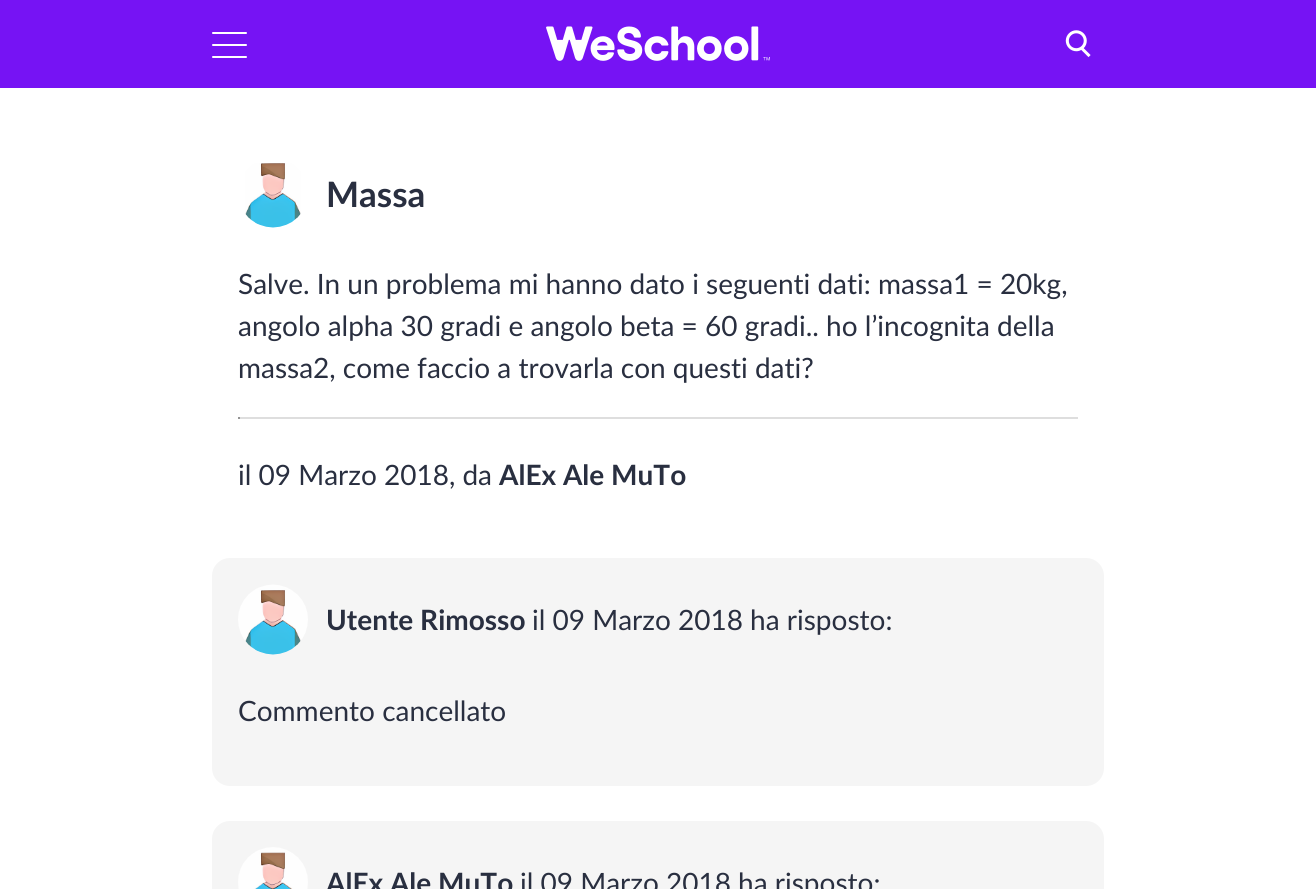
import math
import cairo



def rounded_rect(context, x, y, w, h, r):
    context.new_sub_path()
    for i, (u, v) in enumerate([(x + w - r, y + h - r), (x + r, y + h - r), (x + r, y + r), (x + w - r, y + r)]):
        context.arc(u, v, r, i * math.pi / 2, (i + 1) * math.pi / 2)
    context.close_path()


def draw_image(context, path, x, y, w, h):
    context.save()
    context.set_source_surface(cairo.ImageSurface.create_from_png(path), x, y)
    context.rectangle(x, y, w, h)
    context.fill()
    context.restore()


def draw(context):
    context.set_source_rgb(1, 1, 1)
    context.paint()
    context.set_source_rgb(118 / 255, 19 / 255, 244 / 255)
    context.rectangle(0, 0, 1316, 88)
    context.fill()
    context.set_source_rgb(1, 1, 1)
    rounded_rect(context, 212, 32, 35, 2, 1)
    context.fill()
    rounded_rect(context, 212, 44, 35, 2, 1)
    context.fill()
    rounded_rect(context, 212, 56, 35, 2, 1)
    context.fill()
    draw_image(context, "images/1.png", 546, 26, 224, 35)
    draw_image(context, "images/2.png", 1065, 30, 26, 28)
    draw_image(context, "images/3.png", 245, 163, 56, 65)
    context.set_source_rgb(222 / 255, 222 / 255, 222 / 255)
    context.rectangle(238, 417, 840, 2)
    context.fill()
    context.set_source_rgb(148 / 255, 148 / 255, 148 / 255)
    context.rectangle(238, 417, 2, 2)
    context.fill()
    context.set_source_rgb(245 / 255, 245 / 255, 245 / 255)
    rounded_rect(context, 212, 558, 892, 228, 18)
    context.fill()
    draw_image(context, "images/4.png", 238, 584, 70, 71)
    rounded_rect(context, 212, 821, 892, 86, 18)
    context.fill()
    draw_image(context, "images/5.png", 238, 847, 70, 42)
    context.select_font_face("Lato", cairo.FontSlant.NORMAL, cairo.FontWeight.BOLD)
    context.set_font_size(35)
    context.set_source_rgb(41 / 255, 47 / 255, 64 / 255)
    context.move_to(326, 207)
    context.show_text("Massa")
    context.select_font_face("Lato")
    context.set_font_size(28)
    context.move_to(238, 294)
    context.show_text("Salve. In un problema mi hanno dato i seguenti dati: massa1 = 20kg,")
    context.move_to(238, 336)
    context.show_text("angolo alpha 30 gradi e angolo beta = 60 gradi.. ho l’incognita della")
    context.move_to(238, 378)
    context.show_text("massa2, come faccio a trovarla con questi dati?")
    context.move_to(238, 485)
    context.show_text("il 09 Marzo 2018, da")
    context.select_font_face("Lato", cairo.FontSlant.NORMAL, cairo.FontWeight.BOLD)
    context.move_to(499, 485)
    context.show_text("AlEx Ale MuTo")
    context.move_to(326, 630)
    context.show_text("Utente Rimosso")
    context.select_font_face("Lato")
    context.move_to(532, 630)
    context.show_text("il 09 Marzo 2018 ha risposto:")
    context.move_to(238, 721)
    context.show_text("Commento cancellato")
    context.select_font_face("Lato", cairo.FontSlant.NORMAL, cairo.FontWeight.BOLD)
    context.move_to(326, 893)
    context.show_text("AlEx Ale MuTo")
    context.select_font_face("Lato")
    context.move_to(520, 893)
    context.show_text("il 09 Marzo 2018 ha risposto:")


surface = cairo.ImageSurface(cairo.Format.RGB24, 1316, 889)
context = cairo.Context(surface)
options = cairo.FontOptions()
options.set_hint_metrics(cairo.HintMetrics.OFF)
options.set_hint_style(cairo.HintStyle.NONE)
context.set_font_options(options)
context.set_miter_limit(4)
draw(context)
surface.write_to_png("out.png")
